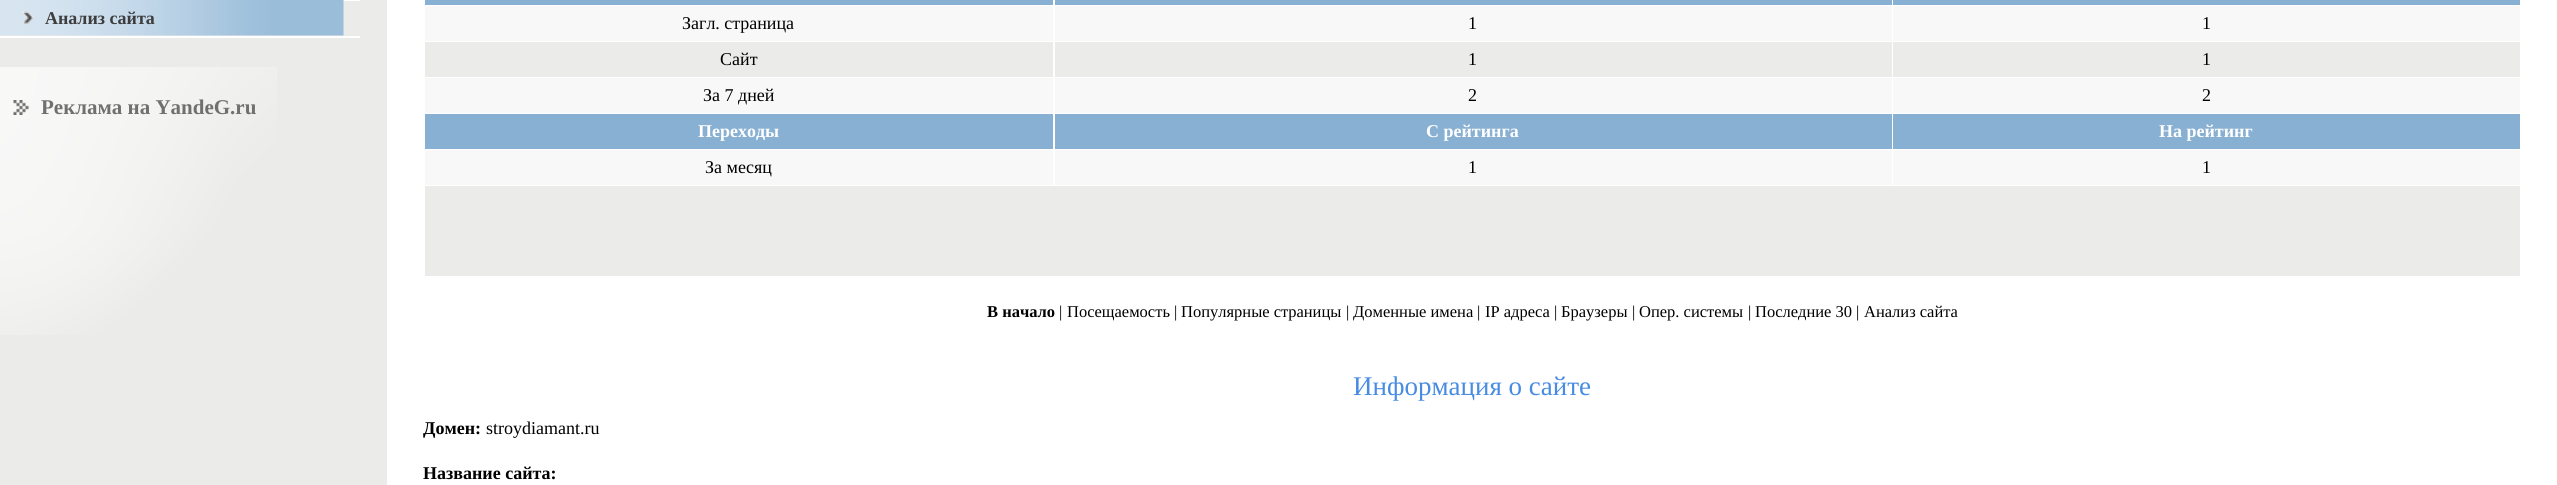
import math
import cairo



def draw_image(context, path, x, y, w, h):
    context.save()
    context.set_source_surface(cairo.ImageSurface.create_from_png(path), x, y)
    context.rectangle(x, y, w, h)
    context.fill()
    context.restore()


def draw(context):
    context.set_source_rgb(1, 1, 1)
    context.paint()
    context.set_source_rgb(235 / 255, 235 / 255, 233 / 255)
    context.rectangle(0, 0, 387, 485)
    context.fill()
    context.set_source_rgb(1, 1, 1)
    context.rectangle(343, 0, 17, 1)
    context.fill()
    context.rectangle(0, 36, 360, 2)
    context.fill()
    draw_image(context, "images/1.png", 0, 0, 344, 36)
    draw_image(context, "images/2.png", 22, 11, 11, 13)
    draw_image(context, "images/3.png", 0, 67, 277, 268)
    draw_image(context, "images/4.png", 13, 100, 16, 15)
    context.set_source_rgb(136 / 255, 176 / 255, 210 / 255)
    context.rectangle(425, 0, 628, 5)
    context.fill()
    context.rectangle(1055, 0, 837, 5)
    context.fill()
    context.rectangle(1893, 0, 627, 5)
    context.fill()
    context.set_source_rgb(248 / 255, 248 / 255, 248 / 255)
    context.rectangle(425, 6, 628, 35)
    context.fill()
    context.rectangle(1055, 6, 837, 35)
    context.fill()
    context.rectangle(1893, 6, 627, 35)
    context.fill()
    context.set_source_rgb(235 / 255, 235 / 255, 233 / 255)
    context.rectangle(425, 42, 628, 35)
    context.fill()
    context.rectangle(1055, 42, 837, 35)
    context.fill()
    context.rectangle(1893, 42, 627, 35)
    context.fill()
    context.set_source_rgb(248 / 255, 248 / 255, 248 / 255)
    context.rectangle(425, 78, 628, 35)
    context.fill()
    context.rectangle(1055, 78, 837, 35)
    context.fill()
    context.rectangle(1893, 78, 627, 35)
    context.fill()
    context.set_source_rgb(136 / 255, 176 / 255, 210 / 255)
    context.rectangle(425, 114, 628, 35)
    context.fill()
    context.rectangle(1055, 114, 837, 35)
    context.fill()
    context.rectangle(1893, 114, 627, 35)
    context.fill()
    context.set_source_rgb(248 / 255, 248 / 255, 248 / 255)
    context.rectangle(425, 150, 628, 35)
    context.fill()
    context.rectangle(1055, 150, 837, 35)
    context.fill()
    context.rectangle(1893, 150, 627, 35)
    context.fill()
    context.set_source_rgb(235 / 255, 235 / 255, 233 / 255)
    context.rectangle(425, 186, 2095, 90)
    context.fill()
    context.select_font_face("Liberation Serif", cairo.FontSlant.NORMAL, cairo.FontWeight.BOLD)
    context.set_font_size(18)
    context.set_source_rgb(61 / 255, 61 / 255, 61 / 255)
    context.move_to(45, 24)
    context.show_text("Анализ сайта")
    context.set_font_size(21)
    context.set_source_rgb(112 / 255, 112 / 255, 112 / 255)
    context.move_to(41, 114)
    context.show_text("Реклама на YandeG.ru")
    context.select_font_face("Liberation Serif")
    context.set_font_size(18)
    context.set_source_rgb(0, 0, 0)
    context.move_to(682, 29)
    context.show_text("Загл. страница")
    context.move_to(1468, 29)
    context.show_text("1")
    context.move_to(2202, 29)
    context.show_text("1")
    context.move_to(720, 65)
    context.show_text("Сайт")
    context.move_to(1468, 65)
    context.show_text("1")
    context.move_to(2202, 65)
    context.show_text("1")
    context.move_to(703, 101)
    context.show_text("За 7 дней")
    context.move_to(1468, 101)
    context.show_text("2")
    context.move_to(2202, 101)
    context.show_text("2")
    context.select_font_face("Liberation Serif", cairo.FontSlant.NORMAL, cairo.FontWeight.BOLD)
    context.set_source_rgb(1, 1, 1)
    context.move_to(698, 137)
    context.show_text("Переходы")
    context.move_to(1426, 137)
    context.show_text("С рейтинга")
    context.move_to(2159, 137)
    context.show_text("На рейтинг")
    context.select_font_face("Liberation Serif")
    context.set_source_rgb(0, 0, 0)
    context.move_to(705, 173)
    context.show_text("За месяц")
    context.move_to(1468, 173)
    context.show_text("1")
    context.move_to(2202, 173)
    context.show_text("1")
    context.select_font_face("Liberation Serif", cairo.FontSlant.NORMAL, cairo.FontWeight.BOLD)
    context.set_font_size(16.5)
    context.move_to(987, 317)
    context.show_text("В начало")
    context.select_font_face("Liberation Serif")
    context.move_to(1059, 317)
    context.show_text("|")
    context.move_to(1067, 317)
    context.show_text("Посещаемость")
    context.move_to(1174, 317)
    context.show_text("|")
    context.move_to(1181, 317)
    context.show_text("Популярные страницы")
    context.move_to(1346, 317)
    context.show_text("|")
    context.move_to(1353, 317)
    context.show_text("Доменные имена")
    context.move_to(1477, 317)
    context.show_text("|")
    context.move_to(1485, 317)
    context.show_text("IP адреса")
    context.move_to(1554, 317)
    context.show_text("|")
    context.move_to(1561, 317)
    context.show_text("Браузеры")
    context.move_to(1632, 317)
    context.show_text("|")
    context.move_to(1639, 317)
    context.show_text("Опер. системы")
    context.move_to(1748, 317)
    context.show_text("|")
    context.move_to(1755, 317)
    context.show_text("Последние 30")
    context.move_to(1856, 317)
    context.show_text("|")
    context.move_to(1864, 317)
    context.show_text("Анализ сайта")
    context.set_font_size(27)
    context.set_source_rgb(71 / 255, 140 / 255, 226 / 255)
    context.move_to(1353, 395)
    context.show_text("Информация о сайте")
    context.select_font_face("Liberation Serif", cairo.FontSlant.NORMAL, cairo.FontWeight.BOLD)
    context.set_font_size(18)
    context.set_source_rgb(0, 0, 0)
    context.move_to(423, 434)
    context.show_text("Домен:")
    context.select_font_face("Liberation Serif")
    context.move_to(486, 434)
    context.show_text("stroydiamant.ru")
    context.select_font_face("Liberation Serif", cairo.FontSlant.NORMAL, cairo.FontWeight.BOLD)
    context.move_to(423, 479)
    context.show_text("Название сайта:")


surface = cairo.ImageSurface(cairo.Format.RGB24, 2557, 485)
context = cairo.Context(surface)
options = cairo.FontOptions()
options.set_hint_metrics(cairo.HintMetrics.OFF)
options.set_hint_style(cairo.HintStyle.NONE)
context.set_font_options(options)
context.set_miter_limit(4)
draw(context)
surface.write_to_png("out.png")
